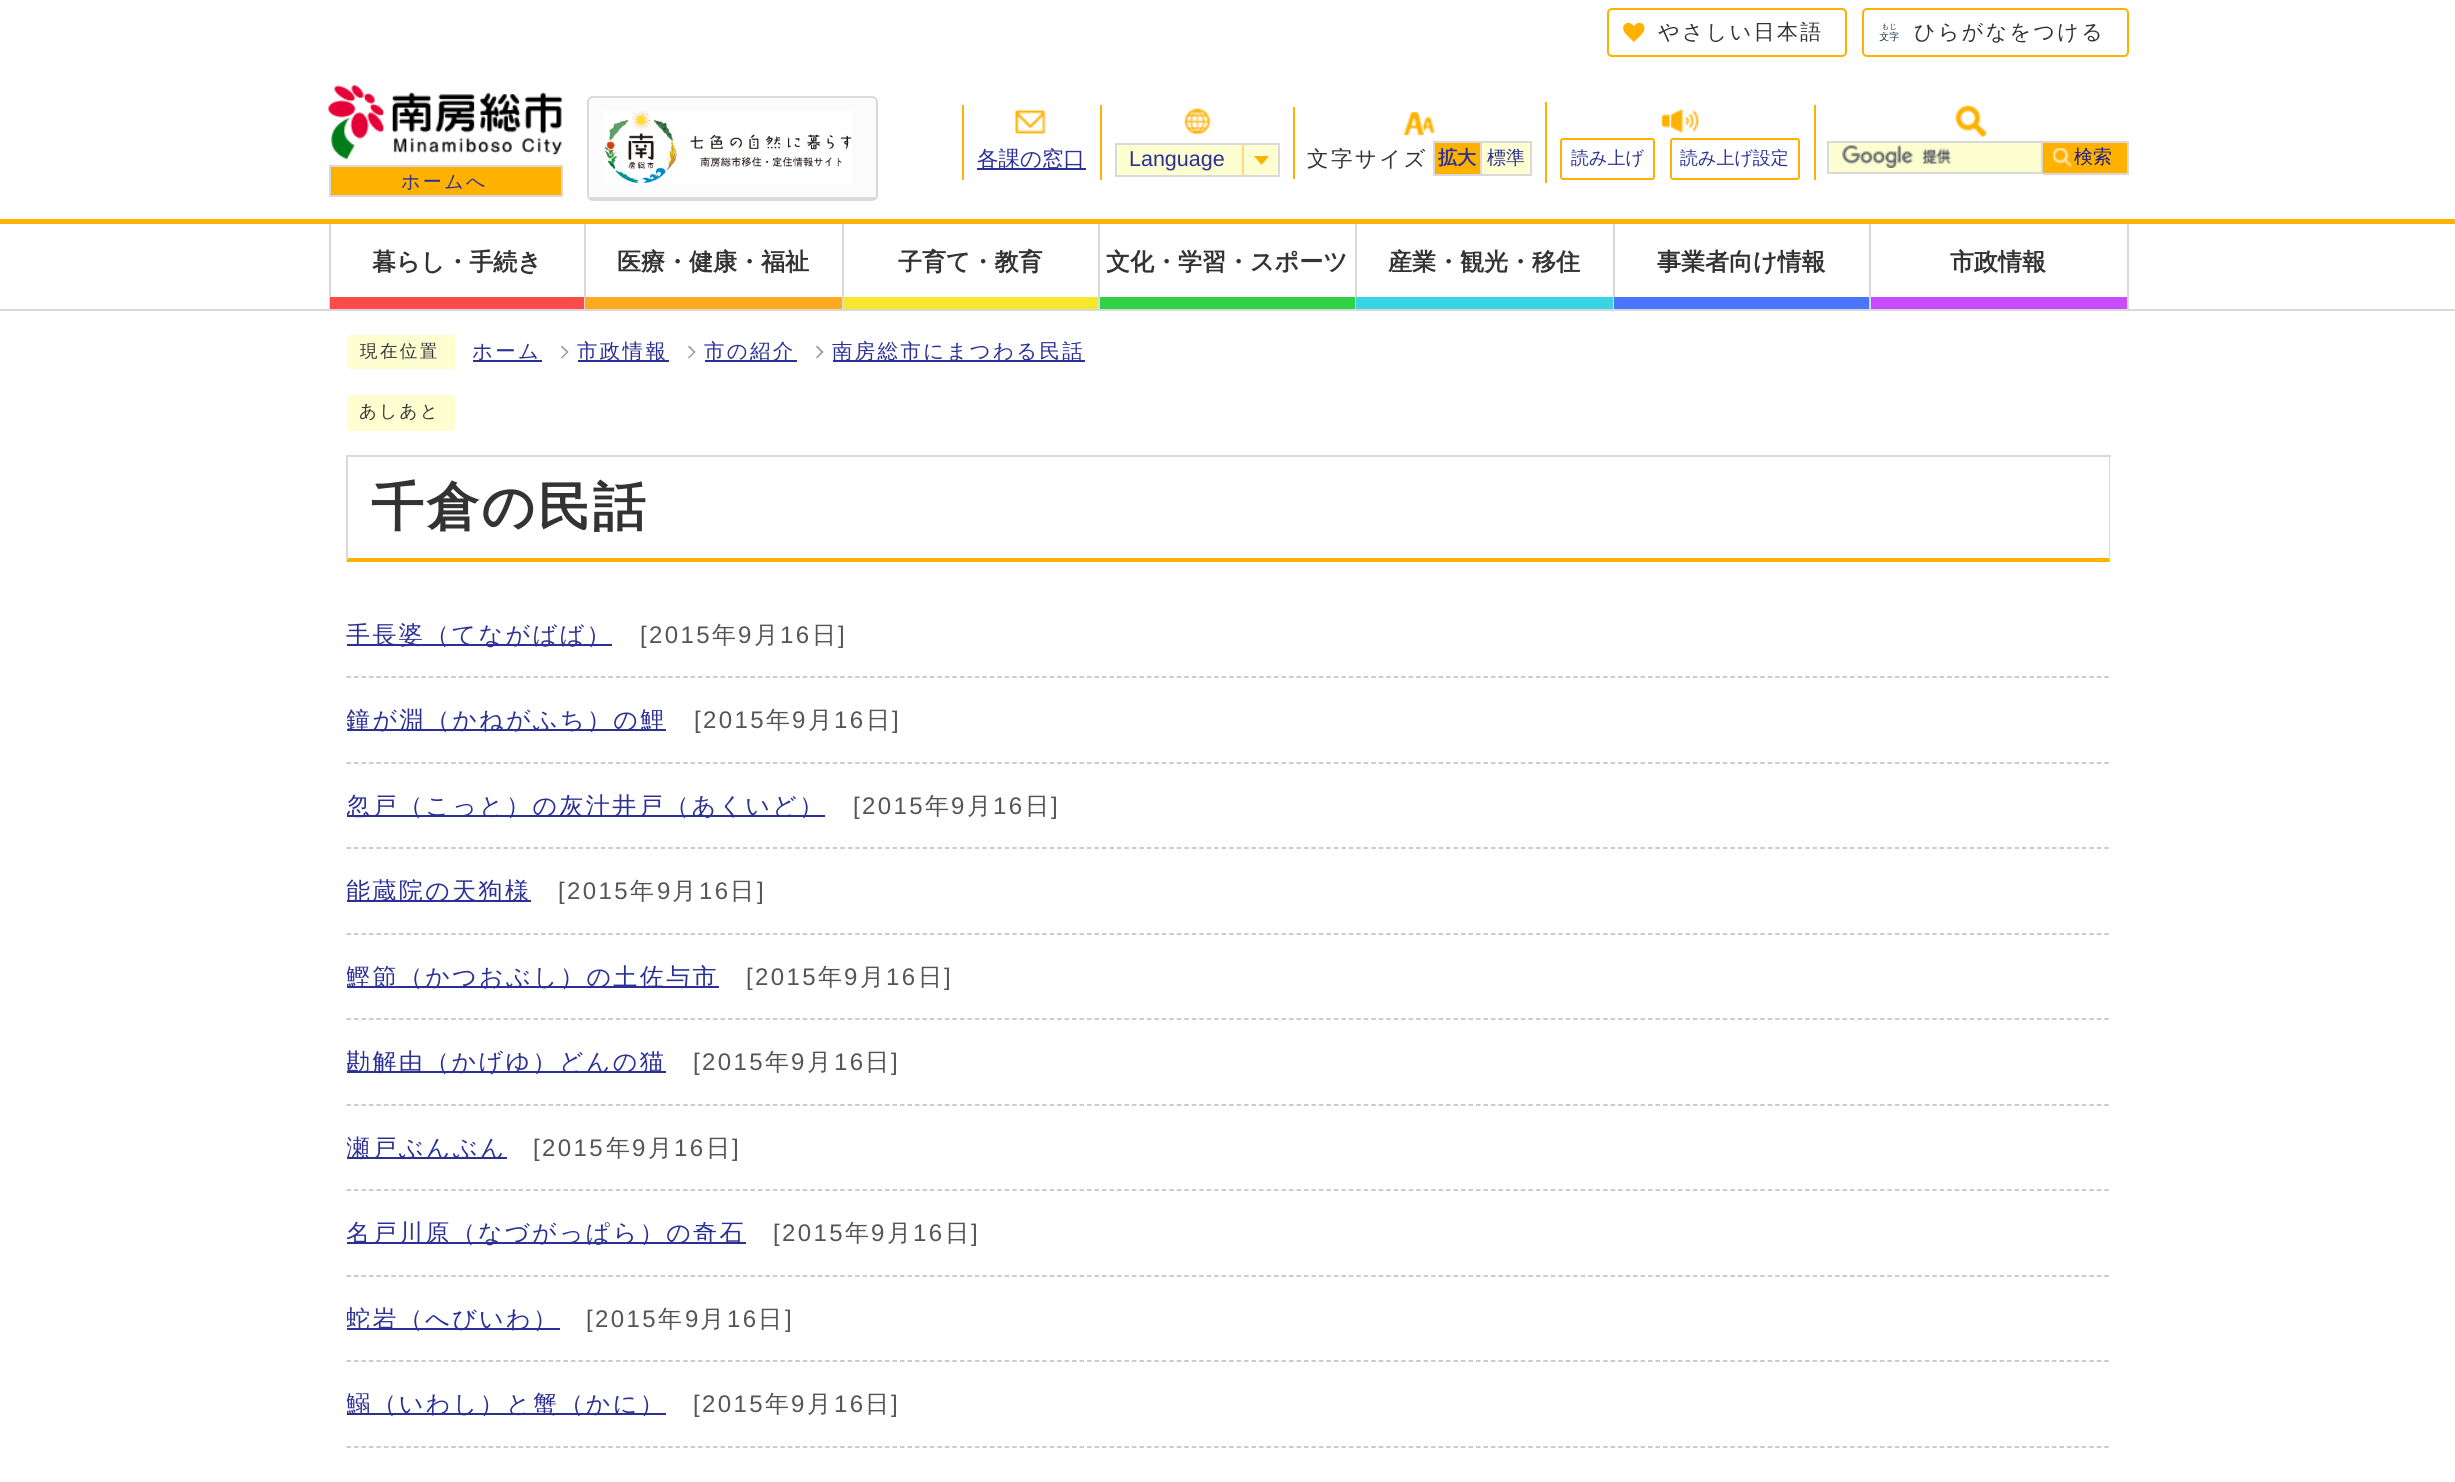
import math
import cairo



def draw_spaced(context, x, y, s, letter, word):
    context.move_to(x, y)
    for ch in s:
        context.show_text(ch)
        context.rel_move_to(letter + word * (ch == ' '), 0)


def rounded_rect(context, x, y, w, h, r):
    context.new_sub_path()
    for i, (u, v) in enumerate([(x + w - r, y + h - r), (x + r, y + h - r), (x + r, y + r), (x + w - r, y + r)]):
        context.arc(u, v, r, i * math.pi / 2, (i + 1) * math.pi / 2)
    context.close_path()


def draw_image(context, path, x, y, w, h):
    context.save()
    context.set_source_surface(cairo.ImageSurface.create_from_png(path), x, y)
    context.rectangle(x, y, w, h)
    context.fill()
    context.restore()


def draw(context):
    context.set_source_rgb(1, 1, 1)
    context.paint()
    draw_image(context, "images/1.png", 1623, 22, 22, 20)
    rounded_rect(context, 1608, 9, 238, 47, 4)
    context.set_source_rgb(1, 177 / 255, 0)
    context.stroke()
    draw_image(context, "images/2.png", 1879, 23, 20, 19)
    rounded_rect(context, 1863, 9, 265, 47, 4)
    context.stroke()
    context.set_source_rgb(251 / 255, 251 / 255, 251 / 255)
    context.new_path()
    context.move_to(592, 98)
    context.line_to(872, 98)
    context.curve_to(874, 98, 876, 100, 876, 102)
    context.line_to(876, 195)
    context.curve_to(876, 196, 874, 196, 872, 196)
    context.line_to(592, 196)
    context.curve_to(590, 196, 588, 196, 588, 195)
    context.line_to(588, 102)
    context.curve_to(588, 100, 590, 98, 592, 98)
    context.close_path()
    context.fill()
    rounded_rect(context, 588, 97, 289, 103, 5)
    context.set_source_rgb(217 / 255, 217 / 255, 217 / 255)
    context.stroke()
    context.rectangle(590, 197, 285, 2)
    context.fill()
    draw_image(context, "images/3.png", 604, 111, 248, 73)
    draw_image(context, "images/4.png", 1015, 110, 31, 24)
    context.set_source_rgb(254 / 255, 177 / 255, 0)
    context.rectangle(962, 105, 2, 75)
    context.fill()
    context.set_source_rgb(43 / 255, 48 / 255, 149 / 255)
    context.rectangle(977, 168, 109, 2)
    context.fill()
    draw_image(context, "images/5.png", 1184, 108, 27, 27)
    context.set_source_rgb(254 / 255, 177 / 255, 0)
    context.rectangle(1100, 105, 2, 75)
    context.fill()
    context.set_source_rgb(253 / 255, 1, 209 / 255)
    context.rectangle(1116, 144, 163, 32)
    context.fill_preserve()
    context.set_source_rgb(217 / 255, 217 / 255, 217 / 255)
    context.stroke()
    context.set_source_rgb(1, 217 / 255, 132 / 255)
    context.rectangle(1242, 144, 2, 32)
    context.fill()
    context.set_source_rgb(1, 177 / 255, 0)
    context.new_path()
    context.move_to(1254, 156)
    context.line_to(1269, 156)
    context.line_to(1261.5, 165)
    context.close_path()
    context.fill()
    draw_image(context, "images/6.png", 1403, 112, 32, 24)
    context.set_source_rgb(254 / 255, 177 / 255, 0)
    context.rectangle(1293, 107, 2, 72)
    context.fill()
    context.set_source_rgb(1, 177 / 255, 0)
    context.rectangle(1434, 142, 47, 33)
    context.fill_preserve()
    context.set_source_rgb(217 / 255, 217 / 255, 217 / 255)
    context.stroke()
    context.set_source_rgb(253 / 255, 1, 209 / 255)
    context.rectangle(1482, 143, 48, 31)
    context.fill()
    context.set_source_rgb(217 / 255, 217 / 255, 217 / 255)
    context.rectangle(1482, 141, 50, 2)
    context.fill()
    context.rectangle(1530, 141, 2, 35)
    context.fill()
    context.rectangle(1482, 174, 50, 2)
    context.fill()
    draw_image(context, "images/7.png", 1661, 109, 39, 24)
    context.set_source_rgb(254 / 255, 177 / 255, 0)
    context.rectangle(1545, 102, 2, 81)
    context.fill()
    rounded_rect(context, 1561, 139, 93, 40, 2)
    context.set_source_rgb(1, 177 / 255, 0)
    context.stroke()
    rounded_rect(context, 1671, 139, 128, 40, 2)
    context.stroke()
    draw_image(context, "images/8.png", 1955, 105, 32, 32)
    context.set_source_rgb(254 / 255, 177 / 255, 0)
    context.rectangle(1814, 105, 2, 75)
    context.fill()
    context.set_source_rgb(253 / 255, 1, 209 / 255)
    context.rectangle(1829, 143, 212, 29)
    context.fill()
    draw_image(context, "images/9.png", 1842, 145, 109, 23)
    context.rectangle(1828, 142, 214, 31)
    context.set_source_rgb(217 / 255, 217 / 255, 217 / 255)
    context.stroke()
    context.set_source_rgb(1, 177 / 255, 0)
    context.rectangle(2043, 143, 84, 30)
    context.fill()
    draw_image(context, "images/10.png", 2053, 148, 19, 19)
    context.set_source_rgb(217 / 255, 217 / 255, 217 / 255)
    context.rectangle(2043, 141, 86, 2)
    context.fill()
    context.rectangle(2127, 141, 2, 33)
    context.fill()
    context.rectangle(2043, 173, 86, 2)
    context.fill()
    draw_image(context, "images/11.png", 328, 85, 235, 74)
    context.set_source_rgb(1, 177 / 255, 0)
    context.rectangle(330, 166, 232, 30)
    context.fill_preserve()
    context.set_source_rgb(217 / 255, 217 / 255, 217 / 255)
    context.stroke()
    context.set_source_rgb(1, 177 / 255, 0)
    context.rectangle(0, 219, 2455, 5)
    context.fill()
    context.set_source_rgb(217 / 255, 217 / 255, 217 / 255)
    context.rectangle(0, 309, 2455, 2)
    context.fill()
    context.rectangle(584, 224, 2, 85)
    context.fill()
    context.rectangle(329, 224, 2, 85)
    context.fill()
    context.set_source_rgb(1, 74 / 255, 74 / 255)
    context.rectangle(330, 297, 254, 12)
    context.fill()
    context.set_source_rgb(217 / 255, 217 / 255, 217 / 255)
    context.rectangle(842, 224, 2, 85)
    context.fill()
    context.set_source_rgb(1, 169 / 255, 31 / 255)
    context.rectangle(585, 297, 257, 12)
    context.fill()
    context.set_source_rgb(217 / 255, 217 / 255, 217 / 255)
    context.rectangle(1098, 224, 2, 85)
    context.fill()
    context.set_source_rgb(247 / 255, 232 / 255, 43 / 255)
    context.rectangle(843, 297, 255, 12)
    context.fill()
    context.set_source_rgb(217 / 255, 217 / 255, 217 / 255)
    context.rectangle(1355, 224, 2, 85)
    context.fill()
    context.set_source_rgb(48 / 255, 209 / 255, 68 / 255)
    context.rectangle(1100, 297, 255, 12)
    context.fill()
    context.set_source_rgb(217 / 255, 217 / 255, 217 / 255)
    context.rectangle(1613, 224, 2, 85)
    context.fill()
    context.set_source_rgb(57 / 255, 212 / 255, 227 / 255)
    context.rectangle(1356, 297, 257, 12)
    context.fill()
    context.set_source_rgb(217 / 255, 217 / 255, 217 / 255)
    context.rectangle(1869, 224, 2, 85)
    context.fill()
    context.set_source_rgb(75 / 255, 116 / 255, 1)
    context.rectangle(1614, 297, 255, 12)
    context.fill()
    context.set_source_rgb(217 / 255, 217 / 255, 217 / 255)
    context.rectangle(2127, 224, 2, 85)
    context.fill()
    context.set_source_rgb(199 / 255, 75 / 255, 1)
    context.rectangle(1871, 297, 256, 12)
    context.fill()
    context.set_source_rgb(253 / 255, 1, 209 / 255)
    rounded_rect(context, 347, 335, 108, 34, 3)
    context.fill()
    context.set_source_rgb(43 / 255, 48 / 255, 149 / 255)
    context.rectangle(473, 360, 69, 2)
    context.fill()
    context.set_source_rgb(153 / 255, 153 / 255, 153 / 255)
    context.new_path()
    context.move_to(561, 347)
    context.line_to(562, 345.5)
    context.line_to(568.5, 352)
    context.line_to(567.5, 353)
    context.close_path()
    context.fill()
    context.new_path()
    context.move_to(561, 357.5)
    context.line_to(567.5, 351)
    context.line_to(568.5, 352)
    context.line_to(562, 358.5)
    context.close_path()
    context.fill()
    context.set_source_rgb(43 / 255, 48 / 255, 149 / 255)
    context.rectangle(578, 360, 91, 2)
    context.fill()
    context.set_source_rgb(153 / 255, 153 / 255, 153 / 255)
    context.new_path()
    context.move_to(688, 347)
    context.line_to(689, 345.5)
    context.line_to(695.5, 352)
    context.line_to(694.5, 353)
    context.close_path()
    context.fill()
    context.new_path()
    context.move_to(688, 357.5)
    context.line_to(694.5, 351)
    context.line_to(695.5, 352)
    context.line_to(689, 358.5)
    context.close_path()
    context.fill()
    context.set_source_rgb(43 / 255, 48 / 255, 149 / 255)
    context.rectangle(705, 360, 92, 2)
    context.fill()
    context.set_source_rgb(153 / 255, 153 / 255, 153 / 255)
    context.new_path()
    context.move_to(816, 347)
    context.line_to(817, 345.5)
    context.line_to(823.5, 352)
    context.line_to(822, 353)
    context.close_path()
    context.fill()
    context.new_path()
    context.move_to(816, 357.5)
    context.line_to(822, 351)
    context.line_to(823.5, 352)
    context.line_to(817, 358.5)
    context.close_path()
    context.fill()
    context.set_source_rgb(43 / 255, 48 / 255, 149 / 255)
    context.rectangle(833, 360, 252, 2)
    context.fill()
    context.set_source_rgb(253 / 255, 1, 209 / 255)
    rounded_rect(context, 347, 395, 108, 36, 3)
    context.fill()
    context.set_source_rgb(217 / 255, 217 / 255, 217 / 255)
    context.rectangle(347, 455, 1764, 2)
    context.fill()
    context.new_path()
    context.move_to(2110, 454)
    context.line_to(2110, 562)
    context.line_to(2109, 558)
    context.line_to(2109, 456)
    context.close_path()
    context.fill()
    context.set_source_rgb(1, 177 / 255, 0)
    context.new_path()
    context.move_to(2110, 562)
    context.line_to(346, 562)
    context.line_to(348, 558)
    context.line_to(2109, 558)
    context.close_path()
    context.fill()
    context.set_source_rgb(217 / 255, 217 / 255, 217 / 255)
    context.new_path()
    context.move_to(346, 562)
    context.line_to(346, 454)
    context.line_to(348, 456)
    context.line_to(348, 558)
    context.close_path()
    context.fill()
    context.new_path()
    context.move_to(346.5, 677)
    context.line_to(2110.5, 677)
    context.set_source_rgb(187 / 255, 187 / 255, 187 / 255)
    context.set_line_width(1.5)
    context.set_dash([4.5, 2.98])
    context.stroke()
    context.set_source_rgb(43 / 255, 48 / 255, 149 / 255)
    context.rectangle(347, 644, 265, 2)
    context.fill()
    context.new_path()
    context.move_to(346.5, 763)
    context.line_to(2110.5, 763)
    context.set_source_rgb(187 / 255, 187 / 255, 187 / 255)
    context.stroke()
    context.set_source_rgb(43 / 255, 48 / 255, 149 / 255)
    context.rectangle(347, 729, 319, 2)
    context.fill()
    context.new_path()
    context.move_to(346.5, 848)
    context.line_to(2110.5, 848)
    context.set_source_rgb(187 / 255, 187 / 255, 187 / 255)
    context.stroke()
    context.set_source_rgb(43 / 255, 48 / 255, 149 / 255)
    context.rectangle(347, 815, 478, 2)
    context.fill()
    context.new_path()
    context.move_to(346.5, 934)
    context.line_to(2110.5, 934)
    context.set_source_rgb(187 / 255, 187 / 255, 187 / 255)
    context.stroke()
    context.set_source_rgb(43 / 255, 48 / 255, 149 / 255)
    context.rectangle(347, 900, 184, 2)
    context.fill()
    context.new_path()
    context.move_to(346.5, 1019)
    context.line_to(2110.5, 1019)
    context.set_source_rgb(187 / 255, 187 / 255, 187 / 255)
    context.stroke()
    context.set_source_rgb(43 / 255, 48 / 255, 149 / 255)
    context.rectangle(347, 986, 372, 2)
    context.fill()
    context.new_path()
    context.move_to(346.5, 1105)
    context.line_to(2110.5, 1105)
    context.set_source_rgb(187 / 255, 187 / 255, 187 / 255)
    context.stroke()
    context.set_source_rgb(43 / 255, 48 / 255, 149 / 255)
    context.rectangle(347, 1071, 319, 2)
    context.fill()
    context.new_path()
    context.move_to(346.5, 1190)
    context.line_to(2110.5, 1190)
    context.set_source_rgb(187 / 255, 187 / 255, 187 / 255)
    context.stroke()
    context.set_source_rgb(43 / 255, 48 / 255, 149 / 255)
    context.rectangle(347, 1157, 160, 2)
    context.fill()
    context.new_path()
    context.move_to(346.5, 1276)
    context.line_to(2110.5, 1276)
    context.set_source_rgb(187 / 255, 187 / 255, 187 / 255)
    context.stroke()
    context.set_source_rgb(43 / 255, 48 / 255, 149 / 255)
    context.rectangle(347, 1242, 399, 2)
    context.fill()
    context.new_path()
    context.move_to(346.5, 1361)
    context.line_to(2110.5, 1361)
    context.set_source_rgb(187 / 255, 187 / 255, 187 / 255)
    context.stroke()
    context.set_source_rgb(43 / 255, 48 / 255, 149 / 255)
    context.rectangle(347, 1328, 213, 2)
    context.fill()
    context.new_path()
    context.move_to(346.5, 1447)
    context.line_to(2110.5, 1447)
    context.set_source_rgb(187 / 255, 187 / 255, 187 / 255)
    context.stroke()
    context.set_source_rgb(43 / 255, 48 / 255, 149 / 255)
    context.rectangle(347, 1413, 319, 2)
    context.fill()
    context.select_font_face("WenQuanYi Zen Hei Medium")
    context.set_font_size(21)
    context.set_source_rgb(51 / 255, 51 / 255, 51 / 255)
    draw_spaced(context, 1658, 39, "やさしい日本語", 2.4, 0)
    draw_spaced(context, 1914, 39, "ひらがなをつける", 2.4, 0)
    context.set_font_size(21.5)
    context.set_source_rgb(43 / 255, 48 / 255, 149 / 255)
    context.move_to(977, 166)
    context.show_text("各課の窓口")
    context.select_font_face("Liberation Sans")
    context.move_to(1129, 166)
    context.show_text("Language")
    context.select_font_face("WenQuanYi Zen Hei Medium")
    context.set_source_rgb(51 / 255, 51 / 255, 51 / 255)
    draw_spaced(context, 1307, 166, "文字サイズ", 2.4, 0)
    context.select_font_face("WenQuanYi Zen Hei", cairo.FontSlant.NORMAL, cairo.FontWeight.BOLD)
    context.set_font_size(19)
    context.set_source_rgb(43 / 255, 48 / 255, 149 / 255)
    context.move_to(1438, 164)
    context.show_text("拡大")
    context.select_font_face("WenQuanYi Zen Hei Medium")
    context.move_to(1487, 164)
    context.show_text("標準")
    context.set_font_size(18)
    context.move_to(1571, 164)
    context.show_text("読み上げ")
    context.move_to(1680, 164)
    context.show_text("読み上げ設定")
    context.set_font_size(19)
    context.set_source_rgb(26 / 255, 31 / 255, 134 / 255)
    context.move_to(2074, 163)
    context.show_text("検索")
    context.set_source_rgb(43 / 255, 48 / 255, 149 / 255)
    draw_spaced(context, 401, 188, "ホームへ", 2.4, 0)
    context.select_font_face("WenQuanYi Zen Hei", cairo.FontSlant.NORMAL, cairo.FontWeight.BOLD)
    context.set_font_size(24)
    context.set_source_rgb(51 / 255, 51 / 255, 51 / 255)
    context.move_to(372, 270)
    context.show_text("暮らし・手続き")
    context.move_to(617, 270)
    context.show_text("医療・健康・福祉")
    context.move_to(898, 270)
    context.show_text("子育て・教育")
    context.move_to(1106, 270)
    context.show_text("文化・学習・スポーツ")
    context.move_to(1388, 270)
    context.show_text("産業・観光・移住")
    context.move_to(1657, 270)
    context.show_text("事業者向け情報")
    context.move_to(1950, 270)
    context.show_text("市政情報")
    context.select_font_face("WenQuanYi Zen Hei Medium")
    context.set_font_size(17.5)
    draw_spaced(context, 360, 357, "現在位置", 2.4, 0)
    context.set_font_size(20.4)
    context.set_source_rgb(43 / 255, 48 / 255, 149 / 255)
    draw_spaced(context, 472, 358, "ホーム", 2.4, 0)
    draw_spaced(context, 577, 358, "市政情報", 2.4, 0)
    draw_spaced(context, 704, 358, "市の紹介", 2.4, 0)
    draw_spaced(context, 832, 358, "南房総市にまつわる民話", 2.4, 0)
    context.set_font_size(17.5)
    context.set_source_rgb(51 / 255, 51 / 255, 51 / 255)
    draw_spaced(context, 359, 417, "あしあと", 2.4, 0)
    context.select_font_face("WenQuanYi Zen Hei", cairo.FontSlant.NORMAL, cairo.FontWeight.BOLD)
    context.set_font_size(52.75)
    draw_spaced(context, 371, 525, "千倉の民話", 2.4, 0)
    context.select_font_face("WenQuanYi Zen Hei Medium")
    context.set_font_size(24)
    context.set_source_rgb(43 / 255, 48 / 255, 149 / 255)
    draw_spaced(context, 346, 643, "手長婆（てながばば）", 2.4, 0)
    context.select_font_face("Liberation Sans")
    context.set_source_rgb(85 / 255, 85 / 255, 85 / 255)
    draw_spaced(context, 640, 643, "[2015", 2.4, 0)
    context.select_font_face("WenQuanYi Zen Hei Medium")
    draw_spaced(context, 712, 643, "年", 2.4, 0)
    context.select_font_face("Liberation Sans")
    draw_spaced(context, 738, 643, "9", 2.4, 0)
    context.select_font_face("WenQuanYi Zen Hei Medium")
    draw_spaced(context, 754, 643, "月", 2.4, 0)
    context.select_font_face("Liberation Sans")
    draw_spaced(context, 780, 643, "16", 2.4, 0)
    context.select_font_face("WenQuanYi Zen Hei Medium")
    draw_spaced(context, 812, 643, "日", 2.4, 0)
    context.select_font_face("Liberation Sans")
    draw_spaced(context, 838, 643, "]", 2.4, 0)
    context.save()
    context.rectangle(347, 702, 1764, 60)
    context.clip()
    context.select_font_face("WenQuanYi Zen Hei Medium")
    context.set_source_rgb(43 / 255, 48 / 255, 149 / 255)
    draw_spaced(context, 346, 728, "鐘が淵（かねがふち）の鯉", 2.4, 0)
    context.restore()
    draw_spaced(context, 694, 728, "[2015", 2.4, 0)
    context.select_font_face("WenQuanYi Zen Hei Medium")
    draw_spaced(context, 766, 728, "年", 2.4, 0)
    context.select_font_face("Liberation Sans")
    draw_spaced(context, 792, 728, "9", 2.4, 0)
    context.select_font_face("WenQuanYi Zen Hei Medium")
    draw_spaced(context, 808, 728, "月", 2.4, 0)
    context.select_font_face("Liberation Sans")
    draw_spaced(context, 834, 728, "16", 2.4, 0)
    context.select_font_face("WenQuanYi Zen Hei Medium")
    draw_spaced(context, 866, 728, "日", 2.4, 0)
    context.select_font_face("Liberation Sans")
    draw_spaced(context, 892, 728, "]", 2.4, 0)
    context.save()
    context.rectangle(347, 788, 1764, 60)
    context.clip()
    context.select_font_face("WenQuanYi Zen Hei Medium")
    context.set_source_rgb(43 / 255, 48 / 255, 149 / 255)
    draw_spaced(context, 346, 814, "忽戸（こっと）の灰汁井戸（あくいど）", 2.4, 0)
    context.restore()
    draw_spaced(context, 853, 814, "[2015", 2.4, 0)
    context.select_font_face("WenQuanYi Zen Hei Medium")
    draw_spaced(context, 925, 814, "年", 2.4, 0)
    context.select_font_face("Liberation Sans")
    draw_spaced(context, 951, 814, "9", 2.4, 0)
    context.select_font_face("WenQuanYi Zen Hei Medium")
    draw_spaced(context, 967, 814, "月", 2.4, 0)
    context.select_font_face("Liberation Sans")
    draw_spaced(context, 993, 814, "16", 2.4, 0)
    context.select_font_face("WenQuanYi Zen Hei Medium")
    draw_spaced(context, 1025, 814, "日", 2.4, 0)
    context.select_font_face("Liberation Sans")
    draw_spaced(context, 1051, 814, "]", 2.4, 0)
    context.select_font_face("WenQuanYi Zen Hei Medium")
    context.set_source_rgb(43 / 255, 48 / 255, 149 / 255)
    draw_spaced(context, 346, 899, "能蔵院の天狗様", 2.4, 0)
    context.select_font_face("Liberation Sans")
    context.set_source_rgb(85 / 255, 85 / 255, 85 / 255)
    draw_spaced(context, 558, 899, "[2015", 2.4, 0)
    context.select_font_face("WenQuanYi Zen Hei Medium")
    draw_spaced(context, 630, 899, "年", 2.4, 0)
    context.select_font_face("Liberation Sans")
    draw_spaced(context, 657, 899, "9", 2.4, 0)
    context.select_font_face("WenQuanYi Zen Hei Medium")
    draw_spaced(context, 672, 899, "月", 2.4, 0)
    context.select_font_face("Liberation Sans")
    draw_spaced(context, 699, 899, "16", 2.4, 0)
    context.select_font_face("WenQuanYi Zen Hei Medium")
    draw_spaced(context, 730, 899, "日", 2.4, 0)
    context.select_font_face("Liberation Sans")
    draw_spaced(context, 757, 899, "]", 2.4, 0)
    context.save()
    context.rectangle(347, 959, 1764, 60)
    context.clip()
    context.select_font_face("WenQuanYi Zen Hei Medium")
    context.set_source_rgb(43 / 255, 48 / 255, 149 / 255)
    draw_spaced(context, 346, 985, "鰹節（かつおぶし）の土佐与市", 2.4, 0)
    context.restore()
    draw_spaced(context, 746, 985, "[2015", 2.4, 0)
    context.select_font_face("WenQuanYi Zen Hei Medium")
    draw_spaced(context, 818, 985, "年", 2.4, 0)
    context.select_font_face("Liberation Sans")
    draw_spaced(context, 844, 985, "9", 2.4, 0)
    context.select_font_face("WenQuanYi Zen Hei Medium")
    draw_spaced(context, 860, 985, "月", 2.4, 0)
    context.select_font_face("Liberation Sans")
    draw_spaced(context, 886, 985, "16", 2.4, 0)
    context.select_font_face("WenQuanYi Zen Hei Medium")
    draw_spaced(context, 918, 985, "日", 2.4, 0)
    context.select_font_face("Liberation Sans")
    draw_spaced(context, 944, 985, "]", 2.4, 0)
    context.save()
    context.rectangle(347, 1044, 1764, 60)
    context.clip()
    context.select_font_face("WenQuanYi Zen Hei Medium")
    context.set_source_rgb(43 / 255, 48 / 255, 149 / 255)
    draw_spaced(context, 346, 1070, "勘解由（かげゆ）どんの猫", 2.4, 0)
    context.restore()
    draw_spaced(context, 693, 1070, "[2015", 2.4, 0)
    context.select_font_face("WenQuanYi Zen Hei Medium")
    draw_spaced(context, 765, 1070, "年", 2.4, 0)
    context.select_font_face("Liberation Sans")
    draw_spaced(context, 791, 1070, "9", 2.4, 0)
    context.select_font_face("WenQuanYi Zen Hei Medium")
    draw_spaced(context, 807, 1070, "月", 2.4, 0)
    context.select_font_face("Liberation Sans")
    draw_spaced(context, 834, 1070, "16", 2.4, 0)
    context.select_font_face("WenQuanYi Zen Hei Medium")
    draw_spaced(context, 865, 1070, "日", 2.4, 0)
    context.select_font_face("Liberation Sans")
    draw_spaced(context, 891, 1070, "]", 2.4, 0)
    context.save()
    context.rectangle(347, 1130, 1764, 60)
    context.clip()
    context.select_font_face("WenQuanYi Zen Hei Medium")
    context.set_source_rgb(43 / 255, 48 / 255, 149 / 255)
    draw_spaced(context, 346, 1156, "瀬戸ぶんぶん", 2.4, 0)
    context.restore()
    draw_spaced(context, 533, 1156, "[2015", 2.4, 0)
    context.select_font_face("WenQuanYi Zen Hei Medium")
    draw_spaced(context, 606, 1156, "年", 2.4, 0)
    context.select_font_face("Liberation Sans")
    draw_spaced(context, 632, 1156, "9", 2.4, 0)
    context.select_font_face("WenQuanYi Zen Hei Medium")
    draw_spaced(context, 648, 1156, "月", 2.4, 0)
    context.select_font_face("Liberation Sans")
    draw_spaced(context, 674, 1156, "16", 2.4, 0)
    context.select_font_face("WenQuanYi Zen Hei Medium")
    draw_spaced(context, 706, 1156, "日", 2.4, 0)
    context.select_font_face("Liberation Sans")
    draw_spaced(context, 732, 1156, "]", 2.4, 0)
    context.select_font_face("WenQuanYi Zen Hei Medium")
    context.set_source_rgb(43 / 255, 48 / 255, 149 / 255)
    draw_spaced(context, 346, 1241, "名戸川原（なづがっぱら）の奇石", 2.4, 0)
    context.select_font_face("Liberation Sans")
    context.set_source_rgb(85 / 255, 85 / 255, 85 / 255)
    draw_spaced(context, 773, 1241, "[2015", 2.4, 0)
    context.select_font_face("WenQuanYi Zen Hei Medium")
    draw_spaced(context, 845, 1241, "年", 2.4, 0)
    context.select_font_face("Liberation Sans")
    draw_spaced(context, 871, 1241, "9", 2.4, 0)
    context.select_font_face("WenQuanYi Zen Hei Medium")
    draw_spaced(context, 887, 1241, "月", 2.4, 0)
    context.select_font_face("Liberation Sans")
    draw_spaced(context, 913, 1241, "16", 2.4, 0)
    context.select_font_face("WenQuanYi Zen Hei Medium")
    draw_spaced(context, 945, 1241, "日", 2.4, 0)
    context.select_font_face("Liberation Sans")
    draw_spaced(context, 971, 1241, "]", 2.4, 0)
    context.save()
    context.rectangle(347, 1301, 1764, 60)
    context.clip()
    context.select_font_face("WenQuanYi Zen Hei Medium")
    context.set_source_rgb(43 / 255, 48 / 255, 149 / 255)
    draw_spaced(context, 346, 1327, "蛇岩（へびいわ）", 2.4, 0)
    context.restore()
    draw_spaced(context, 586, 1327, "[2015", 2.4, 0)
    context.select_font_face("WenQuanYi Zen Hei Medium")
    draw_spaced(context, 658, 1327, "年", 2.4, 0)
    context.select_font_face("Liberation Sans")
    draw_spaced(context, 685, 1327, "9", 2.4, 0)
    context.select_font_face("WenQuanYi Zen Hei Medium")
    draw_spaced(context, 700, 1327, "月", 2.4, 0)
    context.select_font_face("Liberation Sans")
    draw_spaced(context, 727, 1327, "16", 2.4, 0)
    context.select_font_face("WenQuanYi Zen Hei Medium")
    draw_spaced(context, 758, 1327, "日", 2.4, 0)
    context.select_font_face("Liberation Sans")
    draw_spaced(context, 785, 1327, "]", 2.4, 0)
    context.save()
    context.rectangle(347, 1386, 1764, 60)
    context.clip()
    context.select_font_face("WenQuanYi Zen Hei Medium")
    context.set_source_rgb(43 / 255, 48 / 255, 149 / 255)
    draw_spaced(context, 346, 1412, "鰯（いわし）と蟹（かに）", 2.4, 0)
    context.restore()
    draw_spaced(context, 693, 1412, "[2015", 2.4, 0)
    context.select_font_face("WenQuanYi Zen Hei Medium")
    draw_spaced(context, 765, 1412, "年", 2.4, 0)
    context.select_font_face("Liberation Sans")
    draw_spaced(context, 791, 1412, "9", 2.4, 0)
    context.select_font_face("WenQuanYi Zen Hei Medium")
    draw_spaced(context, 807, 1412, "月", 2.4, 0)
    context.select_font_face("Liberation Sans")
    draw_spaced(context, 834, 1412, "16", 2.4, 0)
    context.select_font_face("WenQuanYi Zen Hei Medium")
    draw_spaced(context, 865, 1412, "日", 2.4, 0)
    context.select_font_face("Liberation Sans")
    draw_spaced(context, 891, 1412, "]", 2.4, 0)


surface = cairo.ImageSurface(cairo.Format.RGB24, 2455, 1482)
context = cairo.Context(surface)
options = cairo.FontOptions()
options.set_hint_metrics(cairo.HintMetrics.OFF)
options.set_hint_style(cairo.HintStyle.NONE)
context.set_font_options(options)
context.set_miter_limit(4)
draw(context)
surface.write_to_png("out.png")
